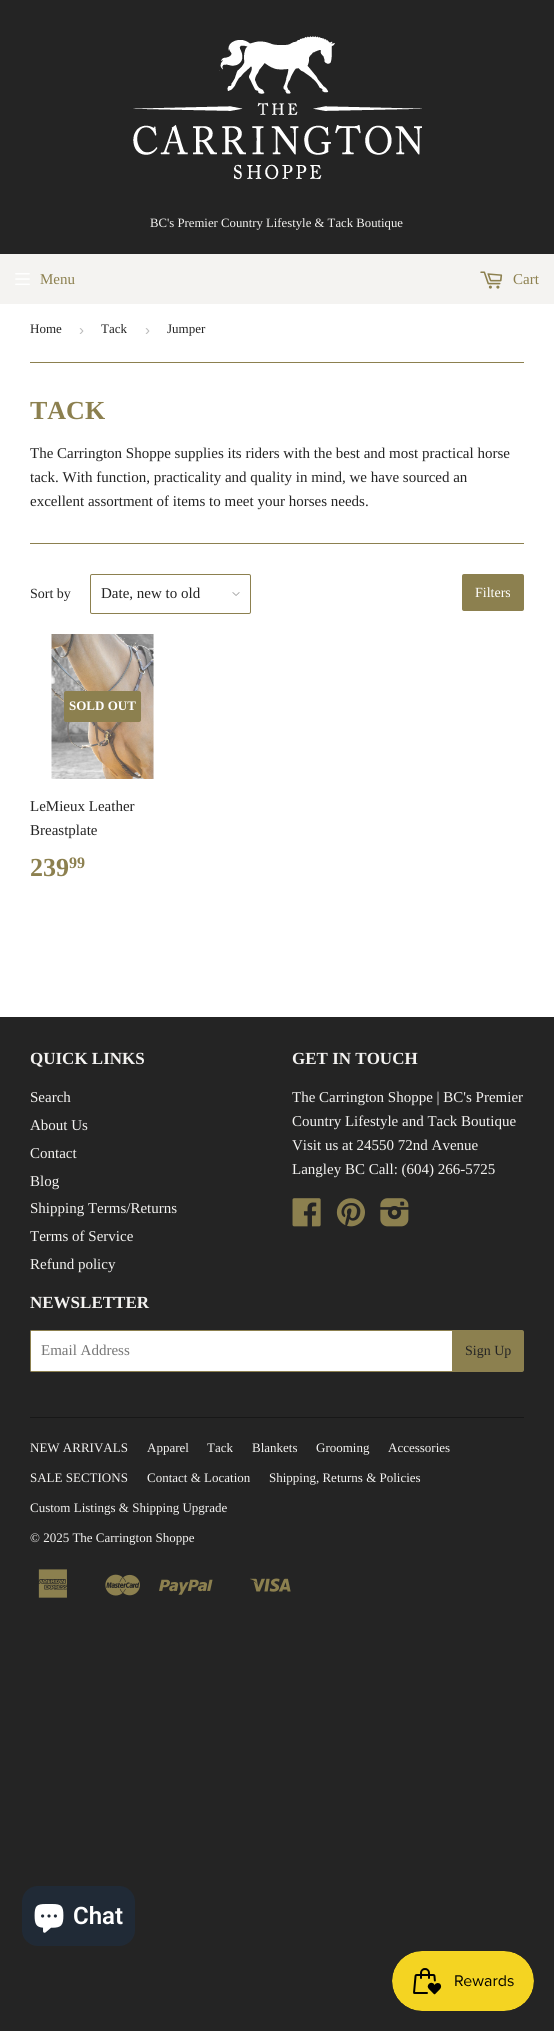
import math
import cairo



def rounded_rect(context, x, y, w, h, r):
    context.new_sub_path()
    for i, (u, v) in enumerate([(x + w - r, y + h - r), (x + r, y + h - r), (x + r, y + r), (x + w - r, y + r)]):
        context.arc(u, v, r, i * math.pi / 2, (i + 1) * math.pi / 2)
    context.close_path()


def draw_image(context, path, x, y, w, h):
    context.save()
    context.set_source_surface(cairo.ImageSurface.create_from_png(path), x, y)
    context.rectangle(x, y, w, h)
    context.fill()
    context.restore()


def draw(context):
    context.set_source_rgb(36 / 255, 36 / 255, 36 / 255)
    context.paint()
    context.set_source_rgb(1, 1, 1)
    context.rectangle(0, 304, 554, 713)
    context.fill()
    draw_image(context, "images/1.png", 133, 36, 289, 144)
    context.set_source_rgb(244 / 255, 243 / 255, 241 / 255)
    context.rectangle(0, 254, 554, 50)
    context.fill()
    draw_image(context, "images/2.png", 15, 273, 15, 12)
    draw_image(context, "images/3.png", 480, 271, 23, 18)
    context.set_source_rgb(140 / 255, 128 / 255, 79 / 255)
    context.rectangle(30, 362, 494, 1)
    context.fill()
    context.rectangle(30, 543, 494, 1)
    context.fill()
    draw_image(context, "images/4.png", 232, 592, 8, 4)
    rounded_rect(context, 90.5, 574.5, 160, 39, 1.5)
    context.set_line_width(1)
    context.stroke()
    rounded_rect(context, 462, 574, 62, 37, 2)
    context.fill()
    draw_image(context, "images/5.png", 51, 634, 103, 145)
    rounded_rect(context, 64, 691, 77, 31, 2)
    context.fill()
    draw_image(context, "images/6.png", 292, 1198, 29, 29)
    draw_image(context, "images/7.png", 336, 1198, 29, 29)
    draw_image(context, "images/8.png", 380, 1198, 29, 29)
    context.set_source_rgb(1, 1, 1)
    context.new_path()
    context.move_to(32, 1330)
    context.line_to(452, 1330)
    context.line_to(452, 1372)
    context.line_to(32, 1372)
    context.curve_to(31, 1372, 30, 1371, 30, 1370)
    context.line_to(30, 1332)
    context.curve_to(30, 1331, 31, 1330, 32, 1330)
    context.close_path()
    context.fill()
    context.set_source_rgb(140 / 255, 128 / 255, 79 / 255)
    context.rectangle(31, 1330, 421, 1)
    context.fill()
    context.rectangle(31, 1371, 421, 1)
    context.fill()
    context.rectangle(30, 1331, 1, 40)
    context.fill()
    context.new_path()
    context.move_to(452, 1330)
    context.line_to(522, 1330)
    context.curve_to(523, 1330, 524, 1331, 524, 1332)
    context.line_to(524, 1370)
    context.curve_to(524, 1371, 523, 1372, 522, 1372)
    context.line_to(452, 1372)
    context.close_path()
    context.fill()
    context.set_source_rgb(23 / 255, 23 / 255, 23 / 255)
    context.rectangle(30, 1417, 494, 1)
    context.fill()
    draw_image(context, "images/9.png", 38, 1569, 30, 29)
    draw_image(context, "images/10.png", 105, 1574, 35, 22)
    draw_image(context, "images/11.png", 159, 1579, 54, 16)
    draw_image(context, "images/12.png", 250, 1578, 41, 14)
    context.set_source_rgb(32 / 255, 42 / 255, 54 / 255)
    rounded_rect(context, 22, 1886, 113, 60, 16)
    context.fill()
    draw_image(context, "images/13.png", 34, 1904, 30, 29)
    draw_image(context, "images/14.png", 392, 1951, 142, 60)
    context.select_font_face("Liberation Serif")
    context.set_font_size(12.75)
    context.set_source_rgb(244 / 255, 243 / 255, 241 / 255)
    context.move_to(150, 227)
    context.show_text("BC's Premier Country Lifestyle & Tack Boutique")
    context.set_font_size(15)
    context.set_source_rgb(140 / 255, 128 / 255, 79 / 255)
    context.move_to(40, 284)
    context.show_text("Menu")
    context.move_to(513, 284)
    context.show_text("Cart")
    context.set_font_size(13)
    context.set_source_rgb(36 / 255, 36 / 255, 36 / 255)
    context.move_to(30, 333)
    context.show_text("Home")
    context.select_font_face("Liberation Sans")
    context.set_font_size(15)
    context.set_source_rgb(187 / 255, 187 / 255, 187 / 255)
    context.move_to(79, 335)
    context.show_text("›")
    context.select_font_face("Liberation Serif")
    context.set_font_size(13)
    context.set_source_rgb(36 / 255, 36 / 255, 36 / 255)
    context.move_to(101, 333)
    context.show_text("Tack")
    context.select_font_face("Liberation Sans")
    context.set_font_size(15)
    context.set_source_rgb(187 / 255, 187 / 255, 187 / 255)
    context.move_to(145, 335)
    context.show_text("›")
    context.select_font_face("Liberation Serif")
    context.set_font_size(13)
    context.set_source_rgb(36 / 255, 36 / 255, 36 / 255)
    context.move_to(167, 333)
    context.show_text("Jumper")
    context.select_font_face("Liberation Serif", cairo.FontSlant.NORMAL, cairo.FontWeight.BOLD)
    context.set_font_size(26)
    context.set_source_rgb(140 / 255, 128 / 255, 79 / 255)
    context.move_to(30, 419)
    context.show_text("TACK")
    context.select_font_face("Liberation Serif")
    context.set_font_size(15)
    context.set_source_rgb(36 / 255, 36 / 255, 36 / 255)
    context.move_to(30, 458)
    context.show_text("The Carrington Shoppe supplies its riders with the best and most practical horse")
    context.move_to(30, 482)
    context.show_text("tack. With function, practicality and quality in mind, we have sourced an")
    context.move_to(30, 506)
    context.show_text("excellent assortment of items to meet your horses needs.")
    context.set_font_size(14)
    context.move_to(30, 598)
    context.show_text("Sort by")
    context.set_font_size(15)
    context.move_to(101, 598)
    context.show_text("Date, new to old")
    context.set_font_size(14)
    context.set_source_rgb(1, 1, 1)
    context.move_to(475, 597)
    context.show_text("Filters")
    context.select_font_face("Liberation Serif", cairo.FontSlant.NORMAL, cairo.FontWeight.BOLD)
    context.set_font_size(13)
    context.move_to(69, 710)
    context.show_text("SOLD OUT")
    context.select_font_face("Liberation Serif")
    context.set_font_size(15)
    context.set_source_rgb(36 / 255, 36 / 255, 36 / 255)
    context.move_to(30, 811)
    context.show_text("LeMieux Leather")
    context.move_to(30, 835)
    context.show_text("Breastplate")
    context.select_font_face("Liberation Serif", cairo.FontSlant.NORMAL, cairo.FontWeight.BOLD)
    context.set_font_size(26)
    context.set_source_rgb(140 / 255, 128 / 255, 79 / 255)
    context.move_to(30, 876)
    context.show_text("239")
    context.set_font_size(16)
    context.move_to(69, 868)
    context.show_text("99")
    context.set_font_size(17)
    context.set_source_rgb(244 / 255, 243 / 255, 241 / 255)
    context.move_to(30, 1064)
    context.show_text("QUICK LINKS")
    context.select_font_face("Liberation Serif")
    context.set_font_size(15)
    context.move_to(30, 1102)
    context.show_text("Search")
    context.move_to(30, 1130)
    context.show_text("About Us")
    context.move_to(30, 1158)
    context.show_text("Contact")
    context.move_to(30, 1186)
    context.show_text("Blog")
    context.move_to(30, 1213)
    context.show_text("Shipping Terms/Returns")
    context.move_to(30, 1241)
    context.show_text("Terms of Service")
    context.move_to(30, 1269)
    context.show_text("Refund policy")
    context.select_font_face("Liberation Serif", cairo.FontSlant.NORMAL, cairo.FontWeight.BOLD)
    context.set_font_size(17)
    context.move_to(292, 1064)
    context.show_text("GET IN TOUCH")
    context.select_font_face("Liberation Serif")
    context.set_font_size(15)
    context.move_to(292, 1102)
    context.show_text("The Carrington Shoppe | BC's Premier")
    context.move_to(292, 1126)
    context.show_text("Country Lifestyle and Tack Boutique")
    context.move_to(292, 1150)
    context.show_text("Visit us at 24550 72nd Avenue")
    context.move_to(292, 1174)
    context.show_text("Langley BC Call: (604) 266-5725")
    context.select_font_face("Liberation Serif", cairo.FontSlant.NORMAL, cairo.FontWeight.BOLD)
    context.set_font_size(17)
    context.move_to(30, 1308)
    context.show_text("NEWSLETTER")
    context.select_font_face("Liberation Serif")
    context.set_font_size(15)
    context.set_source_rgb(117 / 255, 117 / 255, 117 / 255)
    context.move_to(41, 1355)
    context.show_text("Email Address")
    context.set_font_size(14)
    context.set_source_rgb(36 / 255, 36 / 255, 36 / 255)
    context.move_to(465, 1355)
    context.show_text("Sign Up")
    context.set_font_size(13)
    context.set_source_rgb(244 / 255, 243 / 255, 241 / 255)
    context.move_to(30, 1452)
    context.show_text("NEW ARRIVALS")
    context.move_to(147, 1452)
    context.show_text("Apparel")
    context.move_to(207, 1452)
    context.show_text("Tack")
    context.move_to(252, 1452)
    context.show_text("Blankets")
    context.move_to(316, 1452)
    context.show_text("Grooming")
    context.move_to(388, 1452)
    context.show_text("Accessories")
    context.move_to(30, 1482)
    context.show_text("SALE SECTIONS")
    context.move_to(147, 1482)
    context.show_text("Contact & Location")
    context.move_to(269, 1482)
    context.show_text("Shipping, Returns & Policies")
    context.move_to(30, 1512)
    context.show_text("Custom Listings & Shipping Upgrade")
    context.move_to(30, 1542)
    context.show_text("© 2025 The Carrington Shoppe")
    context.select_font_face("Roboto SemiBold")
    context.set_font_size(24)
    context.set_source_rgb(1, 1, 1)
    context.move_to(73, 1924)
    context.show_text("Chat")


surface = cairo.ImageSurface(cairo.Format.RGB24, 554, 2031)
context = cairo.Context(surface)
options = cairo.FontOptions()
options.set_hint_metrics(cairo.HintMetrics.OFF)
options.set_hint_style(cairo.HintStyle.NONE)
context.set_font_options(options)
context.set_miter_limit(4)
draw(context)
surface.write_to_png("out.png")
